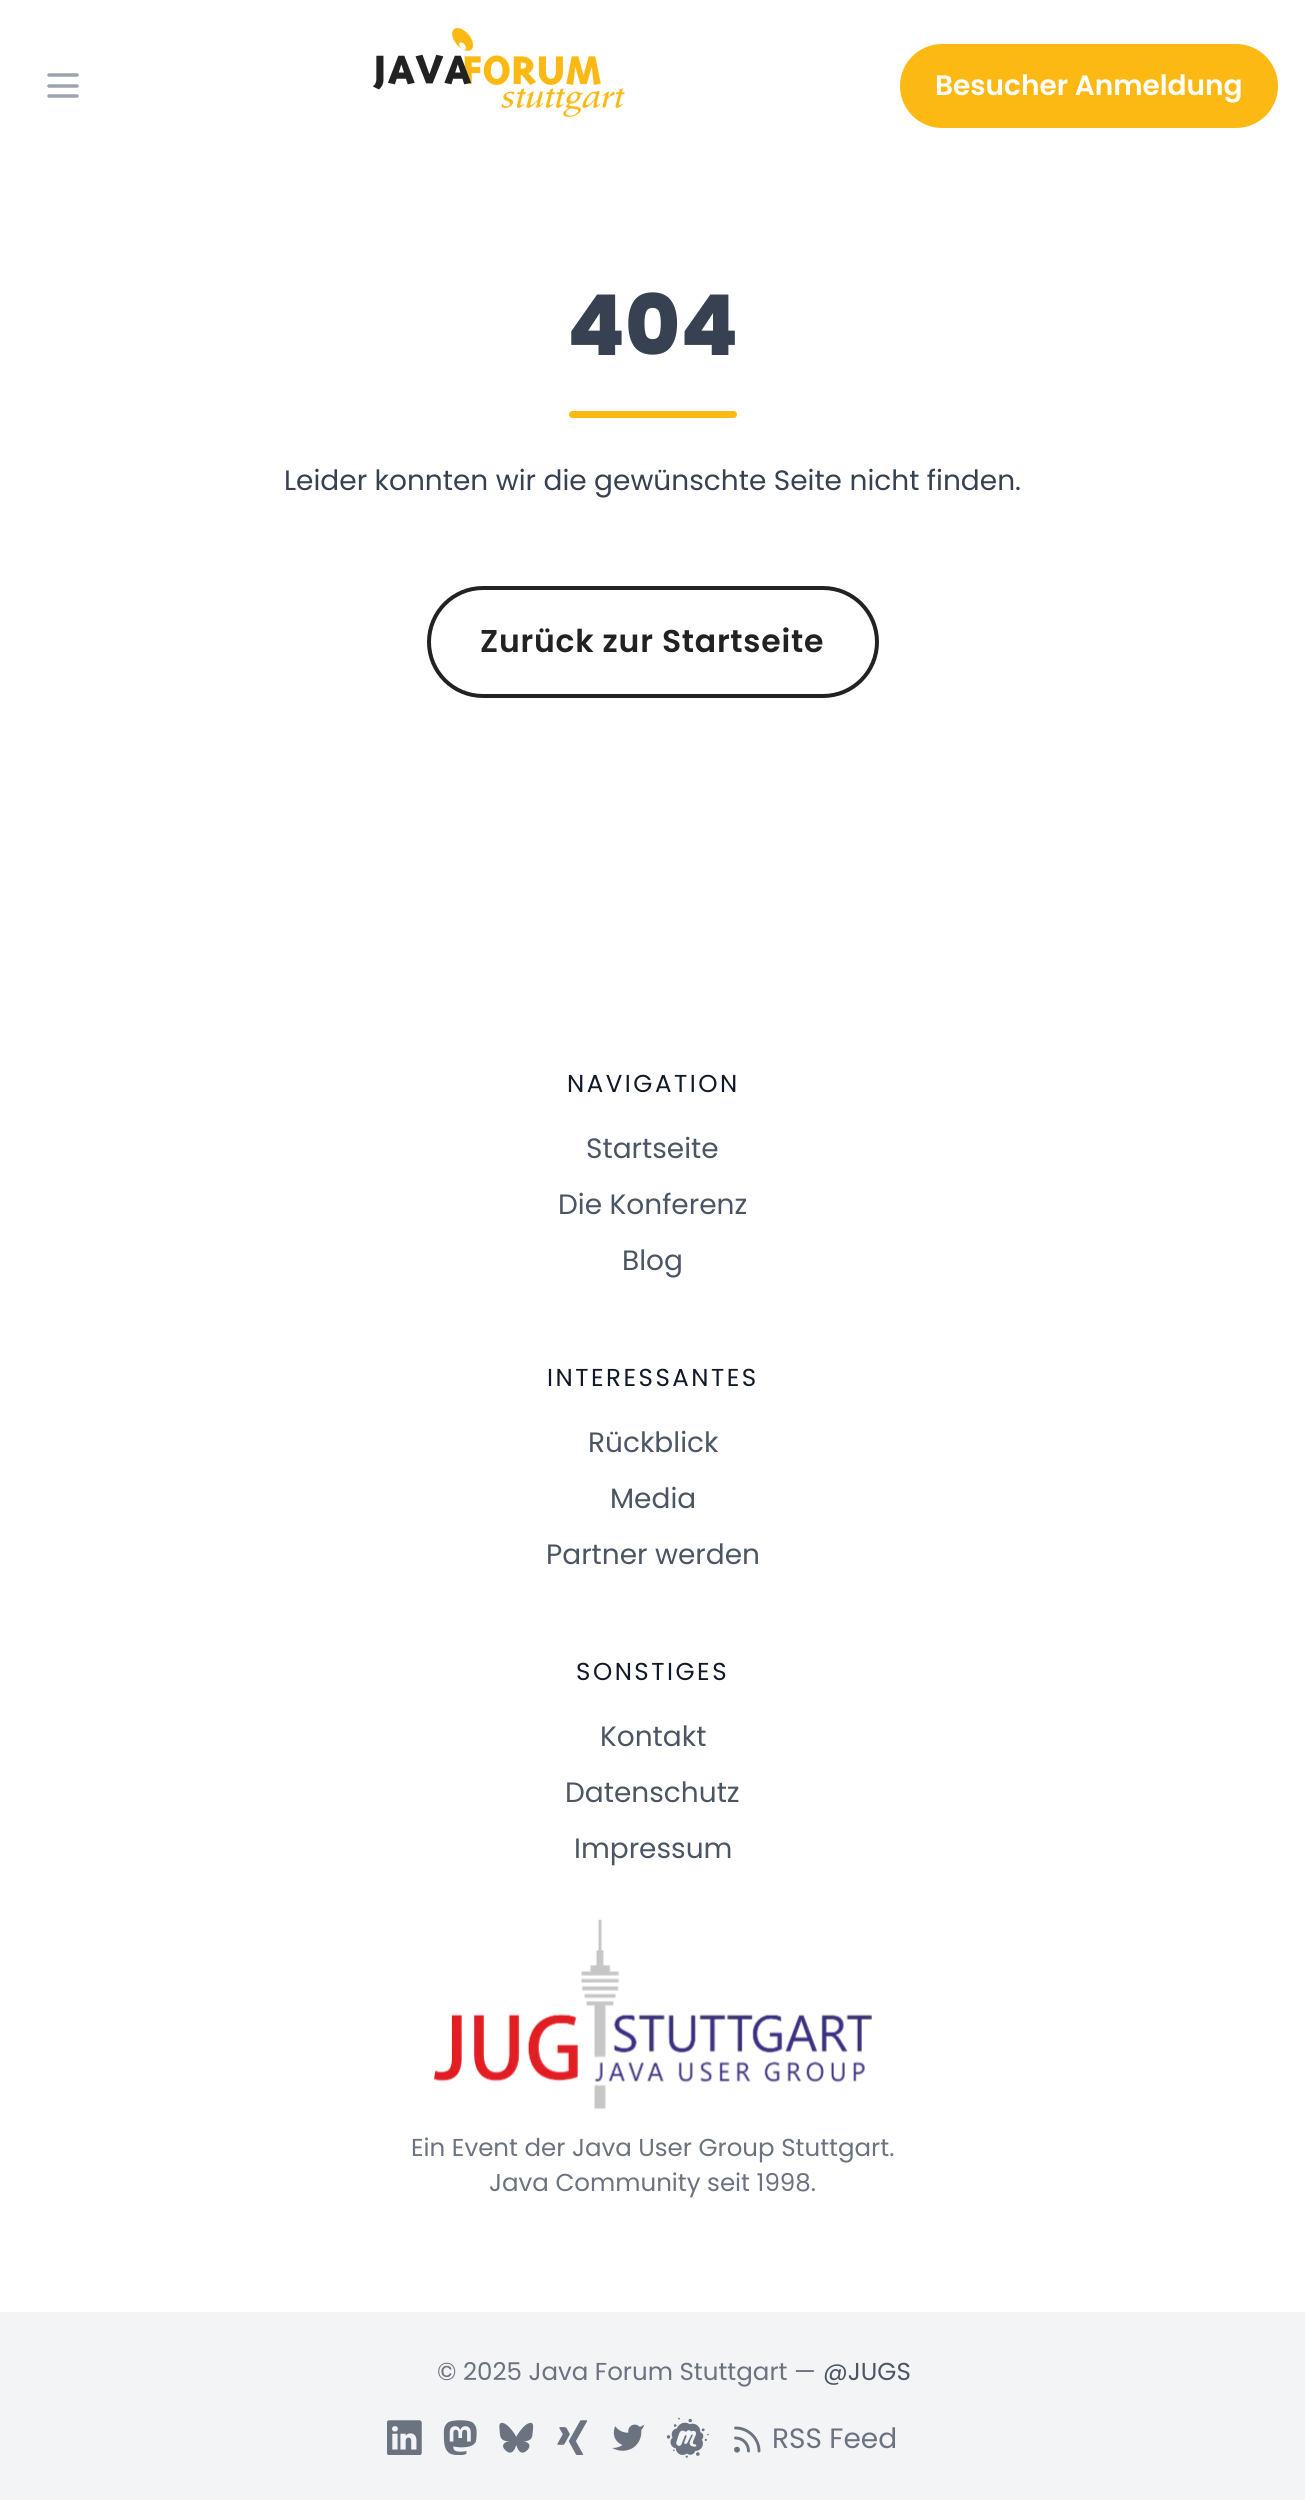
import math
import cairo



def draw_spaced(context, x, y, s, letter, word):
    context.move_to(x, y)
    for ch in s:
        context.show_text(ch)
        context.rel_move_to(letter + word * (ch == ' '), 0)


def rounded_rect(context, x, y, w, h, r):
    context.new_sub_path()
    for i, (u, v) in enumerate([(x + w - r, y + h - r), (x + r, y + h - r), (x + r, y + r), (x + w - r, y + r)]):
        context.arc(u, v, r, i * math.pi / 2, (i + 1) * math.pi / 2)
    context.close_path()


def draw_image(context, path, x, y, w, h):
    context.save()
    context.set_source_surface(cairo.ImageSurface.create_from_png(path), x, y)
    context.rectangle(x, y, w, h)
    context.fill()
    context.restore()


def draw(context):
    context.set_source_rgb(1, 1, 1)
    context.paint()
    context.new_path()
    context.move_to(49, 75)
    context.line_to(77, 75)
    context.move_to(49, 86)
    context.line_to(77, 86)
    context.move_to(49, 96)
    context.line_to(77, 96)
    context.set_source_rgb(156 / 255, 163 / 255, 175 / 255)
    context.set_line_width(3.5)
    context.set_line_cap(cairo.LineCap.ROUND)
    context.set_line_join(cairo.LineJoin.ROUND)
    context.stroke()
    draw_image(context, "images/1.png", 373, 28, 252, 89)
    context.set_source_rgb(252 / 255, 185 / 255, 19 / 255)
    rounded_rect(context, 900, 44, 378, 84, 42)
    context.fill()
    rounded_rect(context, 569, 411, 168, 7, 3.5)
    context.fill()
    rounded_rect(context, 429, 588, 448, 108, 54)
    context.set_source_rgb(34 / 255, 34 / 255, 34 / 255)
    context.set_line_width(4)
    context.set_line_cap(cairo.LineCap.BUTT)
    context.set_line_join(cairo.LineJoin.MITER)
    context.stroke()
    draw_image(context, "images/2.png", 434, 1919, 438, 190)
    context.set_source_rgb(243 / 255, 244 / 255, 246 / 255)
    context.rectangle(0, 2312, 1305, 188)
    context.fill()
    draw_image(context, "images/3.png", 387, 2420, 35, 35)
    draw_image(context, "images/4.png", 443, 2420, 34, 35)
    draw_image(context, "images/5.png", 499, 2422, 35, 31)
    draw_image(context, "images/6.png", 557, 2420, 31, 35)
    draw_image(context, "images/7.png", 612, 2424, 33, 27)
    draw_image(context, "images/8.png", 667, 2417, 42, 41)
    context.new_path()
    context.move_to(735.5, 2438)
    context.curve_to(743, 2438, 748.5, 2444, 748.5, 2451)
    context.move_to(735.5, 2428)
    context.curve_to(748.5, 2428, 759, 2438.5, 759, 2451)
    context.set_source_rgb(107 / 255, 114 / 255, 128 / 255)
    context.set_line_width(2.9)
    context.set_line_cap(cairo.LineCap.ROUND)
    context.set_line_join(cairo.LineJoin.ROUND)
    context.stroke()
    context.arc(737, 2449.7, 1.5, 0, 2 * math.pi)
    context.set_line_cap(cairo.LineCap.BUTT)
    context.set_line_join(cairo.LineJoin.MITER)
    context.stroke()
    context.select_font_face("Poppins SemiBold")
    context.set_font_size(28)
    context.set_source_rgb(1, 1, 1)
    context.move_to(935, 95)
    context.show_text("Besucher Anmeldung")
    context.select_font_face("Poppins ExtraBold")
    context.set_font_size(84)
    context.set_source_rgb(55 / 255, 65 / 255, 81 / 255)
    context.move_to(567, 355)
    context.show_text("404")
    context.select_font_face("Poppins")
    context.set_font_size(28)
    context.move_to(284, 490)
    context.show_text("Leider konnten wir die gewünschte Seite nicht finden.")
    context.select_font_face("Poppins SemiBold")
    context.set_font_size(31.5)
    context.set_source_rgb(34 / 255, 34 / 255, 34 / 255)
    draw_spaced(context, 480, 652, "Zurück zur Startseite", 0.75, 0)
    context.select_font_face("Poppins")
    context.set_font_size(24.5)
    context.set_source_rgb(17 / 255, 24 / 255, 39 / 255)
    draw_spaced(context, 567, 1092, "NAVIGATION", 2.5, 0)
    context.set_font_size(28)
    context.set_source_rgb(75 / 255, 85 / 255, 99 / 255)
    context.move_to(586, 1158)
    context.show_text("Startseite")
    context.move_to(558, 1214)
    context.show_text("Die Konferenz")
    context.move_to(622, 1270)
    context.show_text("Blog")
    context.set_font_size(24.5)
    context.set_source_rgb(17 / 255, 24 / 255, 39 / 255)
    draw_spaced(context, 547, 1386, "INTERESSANTES", 2.5, 0)
    context.set_font_size(28)
    context.set_source_rgb(75 / 255, 85 / 255, 99 / 255)
    context.move_to(588, 1452)
    context.show_text("Rückblick")
    context.move_to(610, 1508)
    context.show_text("Media")
    context.move_to(546, 1564)
    context.show_text("Partner werden")
    context.set_font_size(24.5)
    context.set_source_rgb(17 / 255, 24 / 255, 39 / 255)
    draw_spaced(context, 576, 1680, "SONSTIGES", 2.5, 0)
    context.set_font_size(28)
    context.set_source_rgb(75 / 255, 85 / 255, 99 / 255)
    context.move_to(600, 1746)
    context.show_text("Kontakt")
    context.move_to(565, 1802)
    context.show_text("Datenschutz")
    context.move_to(574, 1858)
    context.show_text("Impressum")
    context.set_font_size(24.5)
    context.set_source_rgb(107 / 255, 114 / 255, 128 / 255)
    context.move_to(411, 2156)
    context.show_text("Ein Event der Java User Group Stuttgart.")
    context.move_to(489, 2191)
    context.show_text("Java Community seit 1998.")
    context.move_to(437, 2380)
    context.show_text("© 2025 Java Forum Stuttgart —")
    context.set_source_rgb(75 / 255, 85 / 255, 99 / 255)
    context.move_to(823, 2380)
    context.show_text("@JUGS")
    context.set_font_size(28)
    context.set_source_rgb(107 / 255, 114 / 255, 128 / 255)
    context.move_to(772, 2448)
    context.show_text("RSS Feed")


surface = cairo.ImageSurface(cairo.Format.RGB24, 1305, 2500)
context = cairo.Context(surface)
options = cairo.FontOptions()
options.set_hint_metrics(cairo.HintMetrics.OFF)
options.set_hint_style(cairo.HintStyle.NONE)
context.set_font_options(options)
context.set_miter_limit(4)
draw(context)
surface.write_to_png("out.png")
